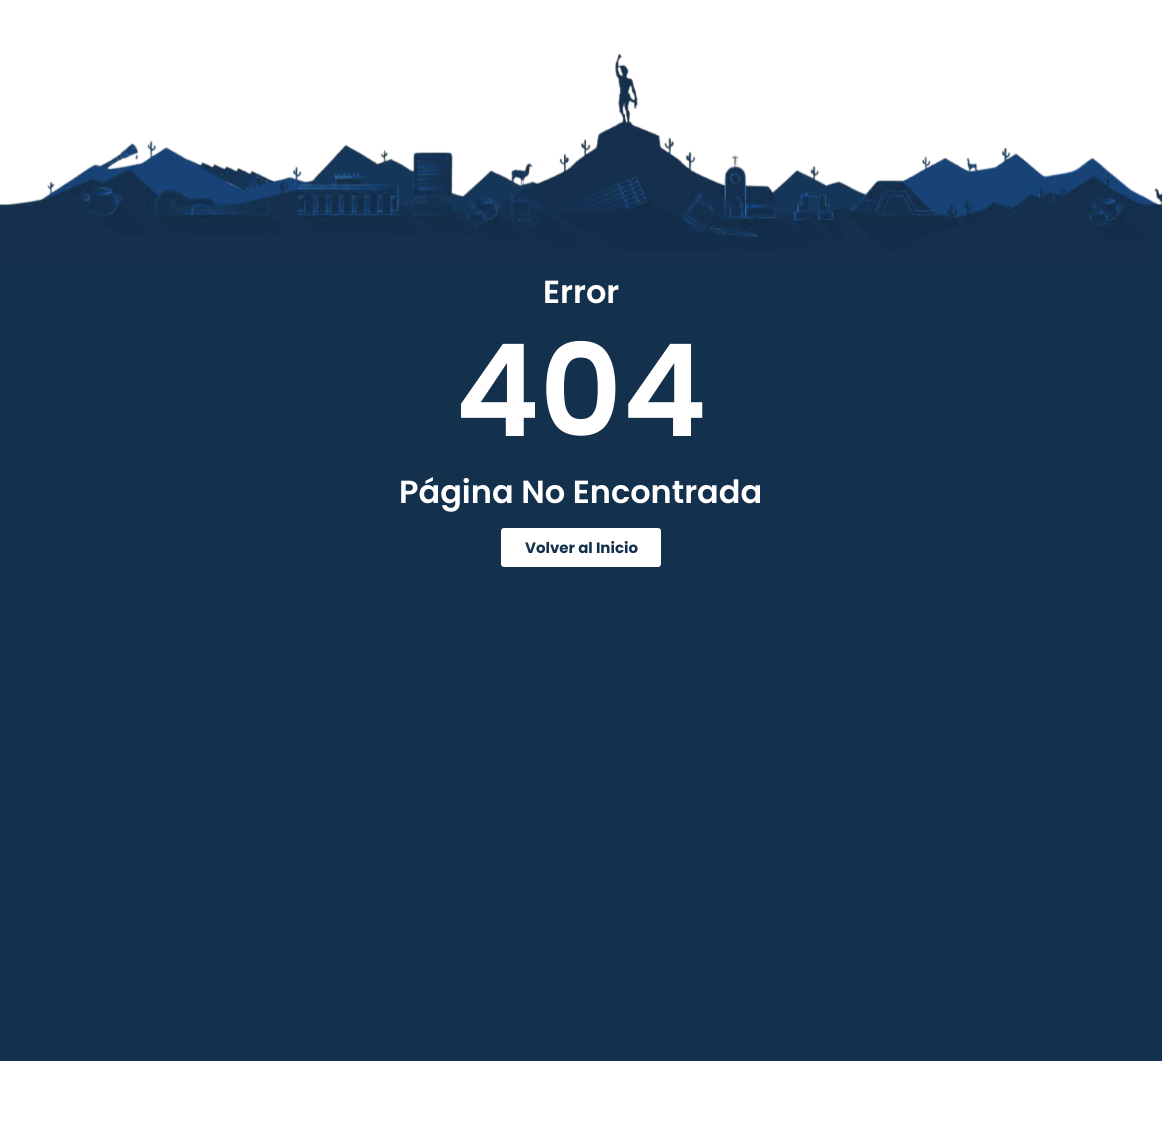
import math
import cairo



def rounded_rect(context, x, y, w, h, r):
    context.new_sub_path()
    for i, (u, v) in enumerate([(x + w - r, y + h - r), (x + r, y + h - r), (x + r, y + r), (x + w - r, y + r)]):
        context.arc(u, v, r, i * math.pi / 2, (i + 1) * math.pi / 2)
    context.close_path()


def draw_image(context, path, x, y, w, h):
    context.save()
    context.set_source_surface(cairo.ImageSurface.create_from_png(path), x, y)
    context.rectangle(x, y, w, h)
    context.fill()
    context.restore()


def draw(context):
    context.set_source_rgb(1, 1, 1)
    context.paint()
    draw_image(context, "images/1.png", 0, 53, 1162, 213)
    context.set_source_rgb(19 / 255, 48 / 255, 77 / 255)
    context.rectangle(0, 266, 1162, 795)
    context.fill()
    context.set_source_rgb(1, 1, 1)
    rounded_rect(context, 501, 528, 160, 39, 3)
    context.fill()
    context.select_font_face("Poppins SemiBold")
    context.set_font_size(32)
    context.move_to(543, 303)
    context.show_text("Error")
    context.set_font_size(128)
    context.move_to(455, 436)
    context.show_text("404")
    context.set_font_size(32)
    context.move_to(399, 503)
    context.show_text("Página No Encontrada")
    context.select_font_face("Poppins", cairo.FontSlant.NORMAL, cairo.FontWeight.BOLD)
    context.set_font_size(15)
    context.set_source_rgb(19 / 255, 48 / 255, 77 / 255)
    context.move_to(525, 553)
    context.show_text("Volver al Inicio")


surface = cairo.ImageSurface(cairo.Format.RGB24, 1162, 1136)
context = cairo.Context(surface)
options = cairo.FontOptions()
options.set_hint_metrics(cairo.HintMetrics.OFF)
options.set_hint_style(cairo.HintStyle.NONE)
context.set_font_options(options)
context.set_miter_limit(4)
draw(context)
surface.write_to_png("out.png")
